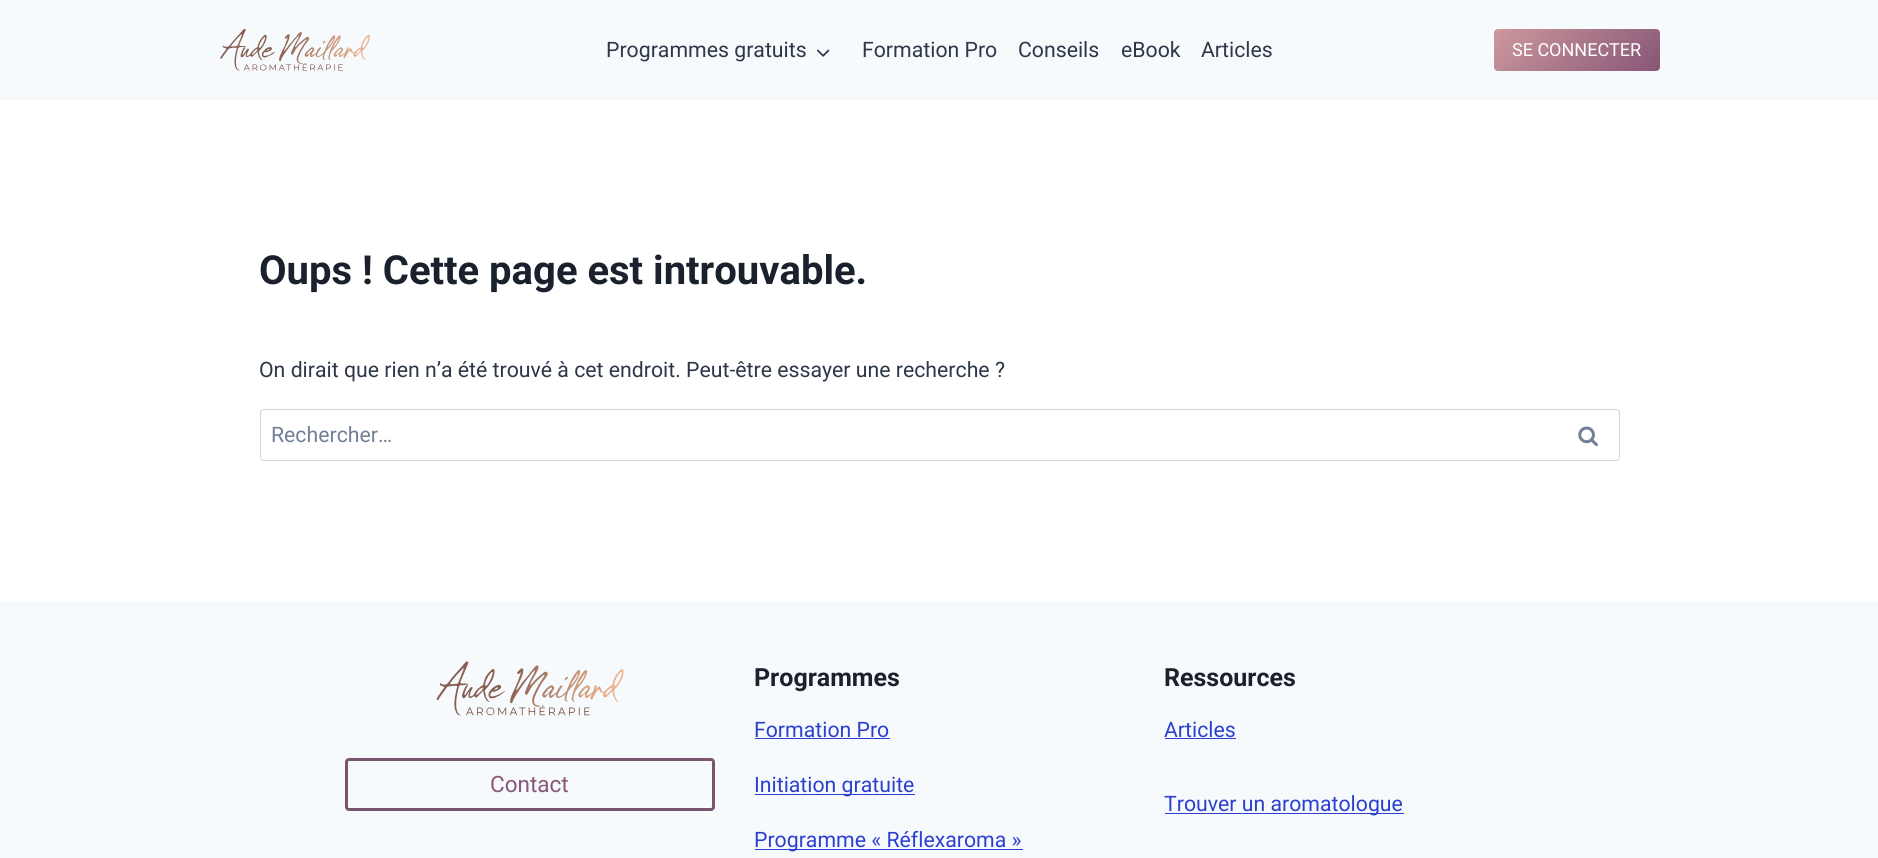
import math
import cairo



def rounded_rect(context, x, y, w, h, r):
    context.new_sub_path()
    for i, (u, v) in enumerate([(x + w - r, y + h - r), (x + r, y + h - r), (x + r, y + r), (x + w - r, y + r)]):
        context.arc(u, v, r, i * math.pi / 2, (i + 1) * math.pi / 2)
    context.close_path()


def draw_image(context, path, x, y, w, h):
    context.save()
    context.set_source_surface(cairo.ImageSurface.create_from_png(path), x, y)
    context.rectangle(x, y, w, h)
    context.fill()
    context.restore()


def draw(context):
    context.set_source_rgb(1, 1, 1)
    context.paint()
    context.set_source_rgb(247 / 255, 250 / 255, 252 / 255)
    context.rectangle(0, 0, 1878, 100)
    context.fill()
    draw_image(context, "images/1.png", 220, 29, 150, 42)
    draw_image(context, "images/2.png", 817, 49, 13, 8)
    gradient = cairo.LinearGradient(1525, -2.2, 1629, 102)
    gradient.add_color_stop_rgba(0, 204 / 255, 153 / 255, 158 / 255, 1)
    gradient.add_color_stop_rgba(0.99, 136 / 255, 86 / 255, 118 / 255, 1)
    context.set_source(gradient)
    rounded_rect(context, 1494, 29, 166, 42, 4)
    context.fill()
    rounded_rect(context, 260.5, 409.5, 1359, 51, 3.5)
    context.set_source_rgb(203 / 255, 213 / 255, 224 / 255)
    context.set_line_width(1)
    context.stroke()
    draw_image(context, "images/3.png", 1578, 426, 20, 20)
    context.set_source_rgb(247 / 255, 250 / 255, 252 / 255)
    context.rectangle(0, 601, 1878, 257)
    context.fill()
    draw_image(context, "images/4.png", 436, 661, 188, 55)
    rounded_rect(context, 346.5, 759.5, 367, 50, 2.5)
    context.set_source_rgb(123 / 255, 85 / 255, 112 / 255)
    context.set_line_width(3)
    context.stroke()
    context.set_source_rgb(44 / 255, 64 / 255, 208 / 255)
    context.rectangle(755, 738, 135, 1)
    context.fill()
    context.rectangle(755, 794, 160, 1)
    context.fill()
    context.rectangle(755, 849, 268, 1)
    context.fill()
    context.rectangle(1165, 738, 71, 1)
    context.fill()
    context.rectangle(1165, 813, 239, 1)
    context.fill()
    context.select_font_face("Roboto")
    context.set_font_size(21.25)
    context.set_source_rgb(45 / 255, 55 / 255, 72 / 255)
    context.move_to(606, 57)
    context.show_text("Programmes gratuits")
    context.move_to(862, 57)
    context.show_text("Formation Pro")
    context.move_to(1018, 57)
    context.show_text("Conseils")
    context.move_to(1121, 57)
    context.show_text("eBook")
    context.move_to(1201, 57)
    context.show_text("Articles")
    context.set_font_size(18)
    context.set_source_rgb(1, 1, 1)
    context.move_to(1512, 56)
    context.show_text("SE CONNECTER")
    context.select_font_face("Roboto", cairo.FontSlant.NORMAL, cairo.FontWeight.BOLD)
    context.set_font_size(40)
    context.set_source_rgb(26 / 255, 32 / 255, 44 / 255)
    context.move_to(259, 284)
    context.show_text("Oups ! Cette page est introuvable.")
    context.select_font_face("Roboto")
    context.set_font_size(21.25)
    context.set_source_rgb(45 / 255, 55 / 255, 72 / 255)
    context.move_to(259, 377)
    context.show_text("On dirait que rien n’a été trouvé à cet endroit. Peut-être essayer une recherche ?")
    context.set_source_rgb(113 / 255, 128 / 255, 150 / 255)
    context.move_to(271, 442)
    context.show_text("Rechercher…")
    context.set_font_size(22.5)
    context.set_source_rgb(136 / 255, 86 / 255, 118 / 255)
    context.move_to(490, 792)
    context.show_text("Contact")
    context.select_font_face("Roboto", cairo.FontSlant.NORMAL, cairo.FontWeight.BOLD)
    context.set_font_size(25)
    context.set_source_rgb(26 / 255, 32 / 255, 44 / 255)
    context.move_to(754, 686)
    context.show_text("Programmes")
    context.select_font_face("Roboto")
    context.set_font_size(21.25)
    context.set_source_rgb(44 / 255, 64 / 255, 208 / 255)
    context.move_to(754, 737)
    context.show_text("Formation Pro")
    context.move_to(754, 792)
    context.show_text("Initiation gratuite")
    context.move_to(754, 847)
    context.show_text("Programme « Réflexaroma »")
    context.select_font_face("Roboto", cairo.FontSlant.NORMAL, cairo.FontWeight.BOLD)
    context.set_font_size(25)
    context.set_source_rgb(26 / 255, 32 / 255, 44 / 255)
    context.move_to(1164, 686)
    context.show_text("Ressources")
    context.select_font_face("Roboto")
    context.set_font_size(21.25)
    context.set_source_rgb(44 / 255, 64 / 255, 208 / 255)
    context.move_to(1164, 737)
    context.show_text("Articles")
    context.move_to(1164, 811)
    context.show_text("Trouver un aromatologue")


surface = cairo.ImageSurface(cairo.Format.RGB24, 1878, 858)
context = cairo.Context(surface)
options = cairo.FontOptions()
options.set_hint_metrics(cairo.HintMetrics.OFF)
options.set_hint_style(cairo.HintStyle.NONE)
context.set_font_options(options)
context.set_miter_limit(4)
draw(context)
surface.write_to_png("out.png")
